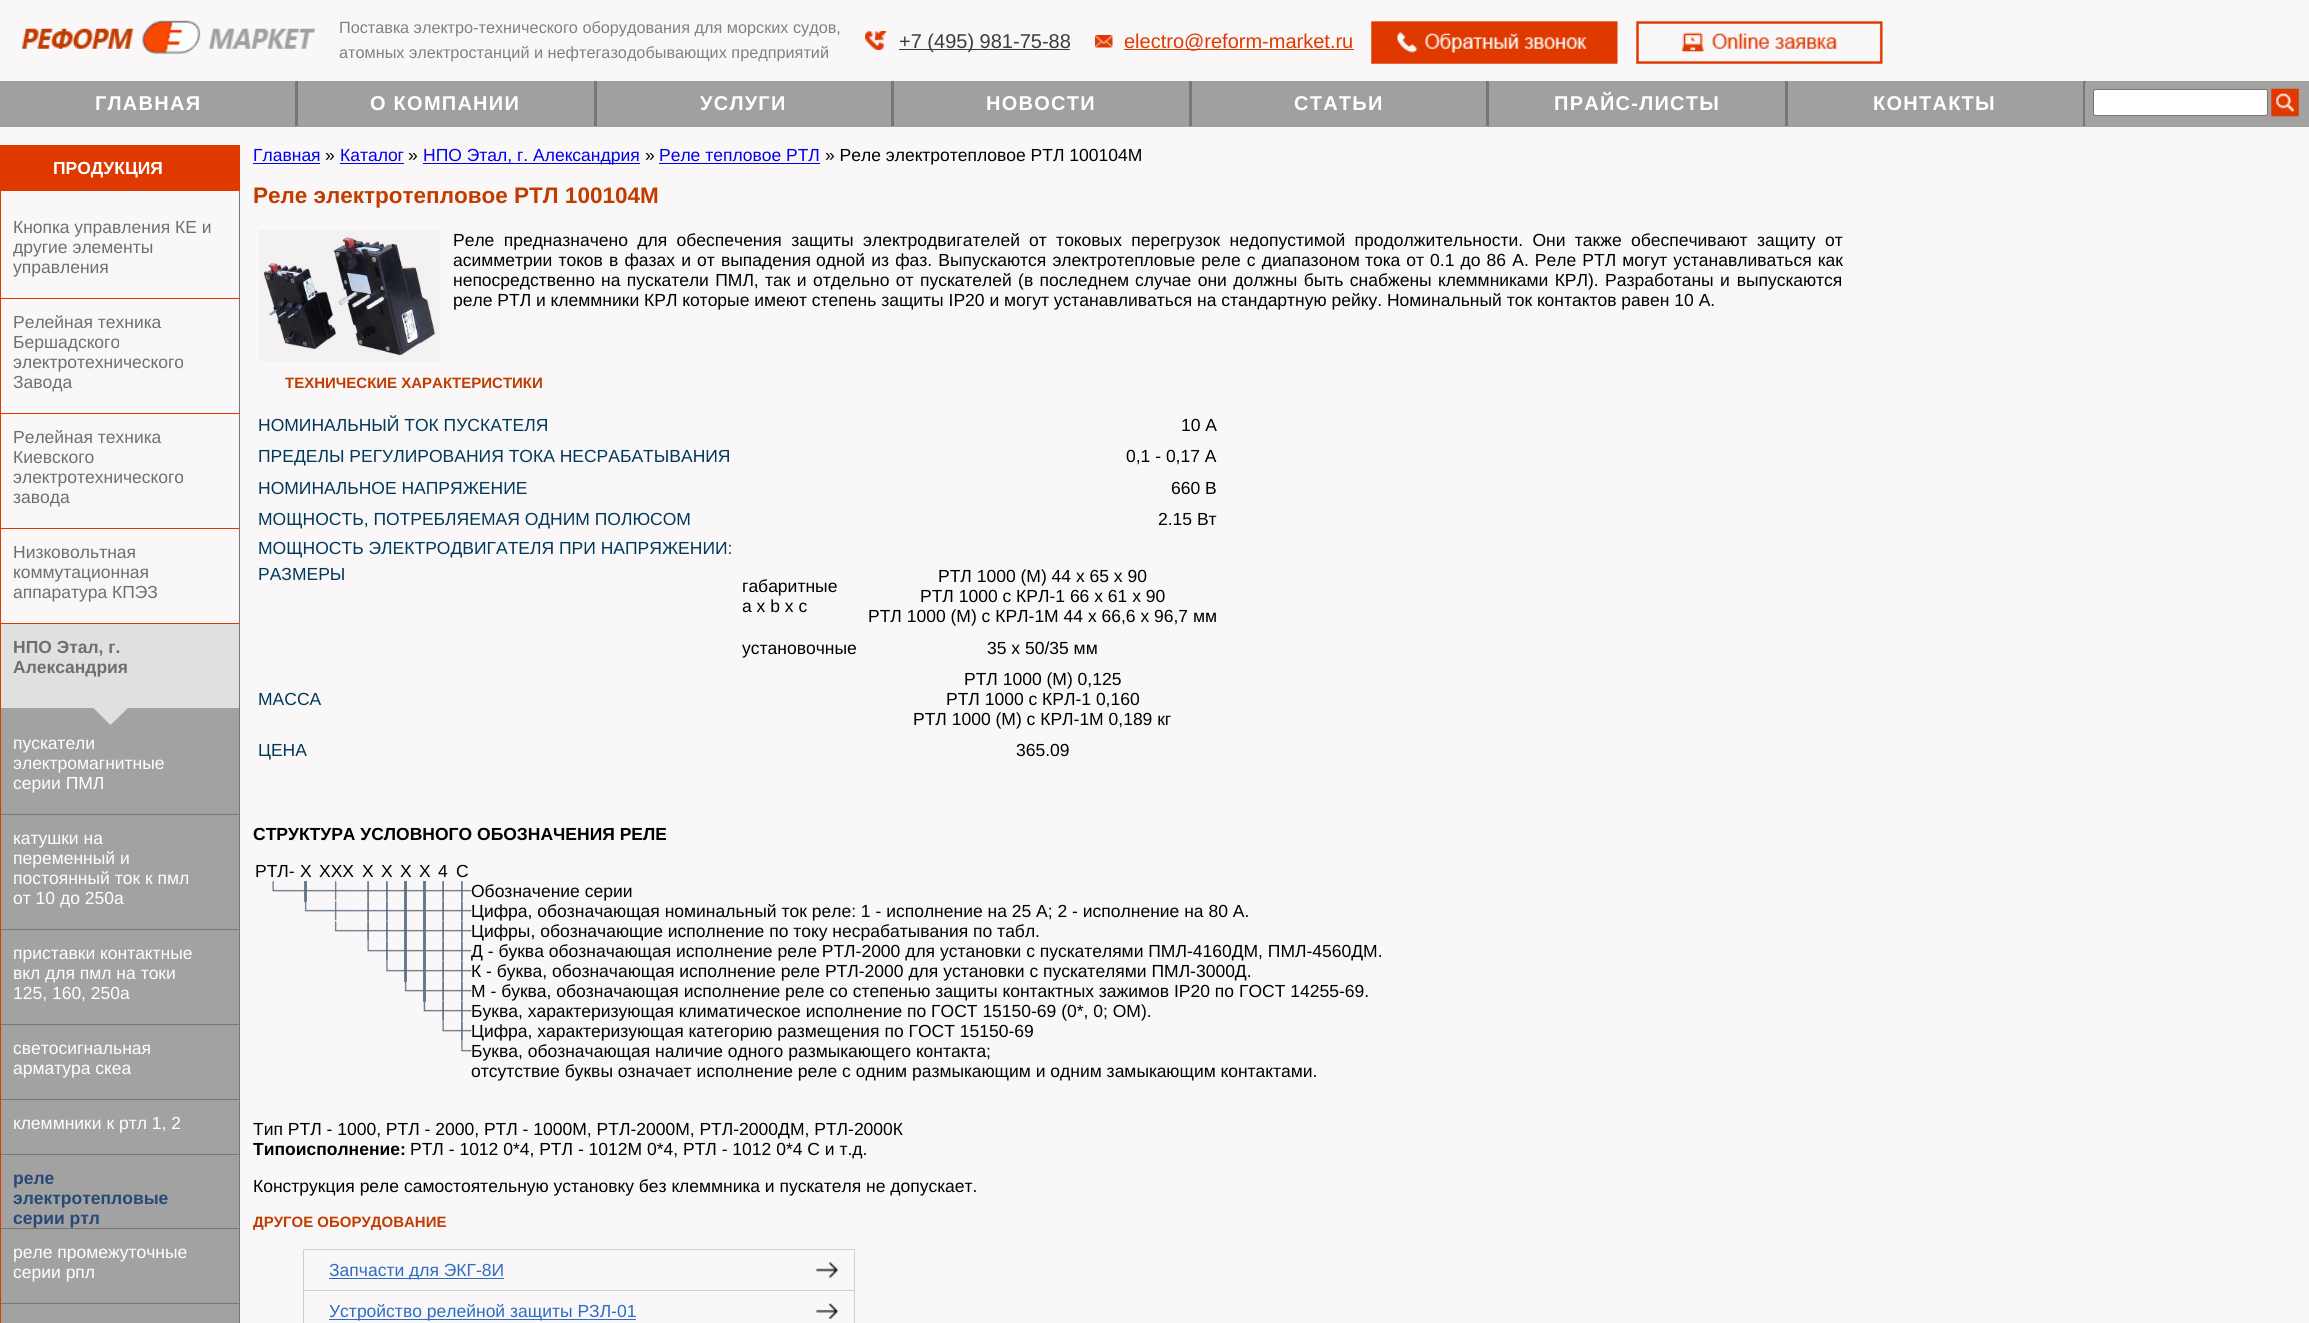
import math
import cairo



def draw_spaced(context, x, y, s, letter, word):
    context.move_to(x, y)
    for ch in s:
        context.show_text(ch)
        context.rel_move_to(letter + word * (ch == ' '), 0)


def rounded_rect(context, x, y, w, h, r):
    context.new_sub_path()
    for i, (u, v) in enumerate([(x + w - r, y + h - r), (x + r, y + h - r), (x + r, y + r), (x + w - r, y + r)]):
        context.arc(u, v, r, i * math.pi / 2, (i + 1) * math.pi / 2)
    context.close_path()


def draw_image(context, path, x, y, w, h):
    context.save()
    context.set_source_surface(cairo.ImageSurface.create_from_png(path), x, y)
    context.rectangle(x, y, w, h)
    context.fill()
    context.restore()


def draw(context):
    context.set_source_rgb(249 / 255, 247 / 255, 247 / 255)
    context.paint()
    context.set_source_rgb(113 / 255, 128 / 255, 146 / 255)
    context.rectangle(423, 881, 3, 121)
    context.fill()
    context.set_source_rgb(100 / 255, 116 / 255, 136 / 255)
    context.rectangle(423, 981, 3, 1)
    context.fill()
    context.set_source_rgb(113 / 255, 129 / 255, 146 / 255)
    context.rectangle(404, 881, 3, 101)
    context.fill()
    context.set_source_rgb(100 / 255, 116 / 255, 136 / 255)
    context.rectangle(423, 961, 3, 1)
    context.fill()
    context.set_source_rgb(100 / 255, 117 / 255, 136 / 255)
    context.rectangle(404, 961, 3, 1)
    context.fill()
    context.set_source_rgb(100 / 255, 116 / 255, 136 / 255)
    context.rectangle(423, 941, 3, 1)
    context.fill()
    context.set_source_rgb(100 / 255, 117 / 255, 136 / 255)
    context.rectangle(404, 941, 3, 1)
    context.fill()
    context.set_source_rgb(100 / 255, 116 / 255, 136 / 255)
    context.rectangle(423, 921, 3, 1)
    context.fill()
    context.set_source_rgb(100 / 255, 117 / 255, 136 / 255)
    context.rectangle(404, 921, 3, 1)
    context.fill()
    draw_image(context, "images/1.png", 21, 20, 294, 34)
    draw_image(context, "images/2.png", 865, 31, 22, 19)
    context.set_source_rgb(60 / 255, 60 / 255, 60 / 255)
    context.rectangle(899, 49, 171, 1)
    context.fill()
    draw_image(context, "images/3.png", 1095, 35, 18, 13)
    context.set_source_rgb(223 / 255, 57 / 255, 0)
    context.rectangle(1124, 49, 230, 1)
    context.fill()
    draw_image(context, "images/4.png", 1371, 21, 247, 43)
    draw_image(context, "images/5.png", 1636, 21, 247, 43)
    context.set_source_rgb(160 / 255, 160 / 255, 160 / 255)
    context.rectangle(0, 81, 2309, 46)
    context.fill()
    context.set_source_rgb(119 / 255, 119 / 255, 119 / 255)
    context.rectangle(295, 81, 3, 45)
    context.fill()
    context.rectangle(594, 81, 3, 45)
    context.fill()
    context.rectangle(891, 81, 3, 45)
    context.fill()
    context.rectangle(1189, 81, 3, 45)
    context.fill()
    context.rectangle(1486, 81, 3, 45)
    context.fill()
    context.rectangle(1785, 81, 3, 45)
    context.fill()
    context.rectangle(2083, 81, 3, 45)
    context.fill()
    context.set_source_rgb(163 / 255, 162 / 255, 162 / 255)
    context.rectangle(2085, 83, 224, 42)
    context.fill()
    context.set_source_rgb(1, 1, 1)
    rounded_rect(context, 2093.5, 89.5, 174, 26, 2)
    context.fill_preserve()
    context.set_source_rgb(118 / 255, 118 / 255, 118 / 255)
    context.set_line_width(1)
    context.stroke()
    draw_image(context, "images/6.png", 2271, 88, 28, 29)
    context.set_source_rgb(223 / 255, 57 / 255, 0)
    context.rectangle(0, 145, 240, 45)
    context.fill()
    context.rectangle(0, 190, 240, 1)
    context.fill()
    context.set_source_rgb(119 / 255, 119 / 255, 119 / 255)
    context.rectangle(239, 190, 1, 108)
    context.fill()
    context.set_source_rgb(223 / 255, 57 / 255, 0)
    context.rectangle(0, 190, 1, 108)
    context.fill()
    context.rectangle(0, 298, 240, 1)
    context.fill()
    context.set_source_rgb(119 / 255, 119 / 255, 119 / 255)
    context.rectangle(239, 298, 1, 115)
    context.fill()
    context.set_source_rgb(223 / 255, 57 / 255, 0)
    context.rectangle(0, 298, 1, 115)
    context.fill()
    context.rectangle(0, 413, 240, 1)
    context.fill()
    context.set_source_rgb(119 / 255, 119 / 255, 119 / 255)
    context.rectangle(239, 413, 1, 115)
    context.fill()
    context.set_source_rgb(223 / 255, 57 / 255, 0)
    context.rectangle(0, 413, 1, 115)
    context.fill()
    context.rectangle(0, 528, 240, 1)
    context.fill()
    context.set_source_rgb(119 / 255, 119 / 255, 119 / 255)
    context.rectangle(239, 528, 1, 95)
    context.fill()
    context.set_source_rgb(223 / 255, 57 / 255, 0)
    context.rectangle(0, 528, 1, 95)
    context.fill()
    context.set_source_rgb(224 / 255, 224 / 255, 224 / 255)
    context.rectangle(1, 624, 238, 84)
    context.fill()
    context.set_source_rgb(223 / 255, 57 / 255, 0)
    context.rectangle(0, 623, 240, 1)
    context.fill()
    context.set_source_rgb(119 / 255, 119 / 255, 119 / 255)
    context.rectangle(239, 623, 1, 700)
    context.fill()
    context.set_source_rgb(223 / 255, 57 / 255, 0)
    context.rectangle(0, 623, 1, 700)
    context.fill()
    context.set_source_rgb(162 / 255, 162 / 255, 162 / 255)
    context.rectangle(1, 708, 238, 106)
    context.fill()
    context.set_source_rgb(224 / 255, 224 / 255, 224 / 255)
    context.new_path()
    context.move_to(110.5, 690)
    context.line_to(128.5, 707.5)
    context.line_to(110.5, 725)
    context.line_to(93, 707.5)
    context.close_path()
    context.fill()
    context.set_source_rgb(119 / 255, 119 / 255, 119 / 255)
    context.rectangle(1, 814, 238, 1)
    context.fill()
    context.set_source_rgb(162 / 255, 162 / 255, 162 / 255)
    context.rectangle(1, 815, 238, 114)
    context.fill()
    context.set_source_rgb(119 / 255, 119 / 255, 119 / 255)
    context.rectangle(1, 929, 238, 1)
    context.fill()
    context.set_source_rgb(162 / 255, 162 / 255, 162 / 255)
    context.rectangle(1, 930, 238, 94)
    context.fill()
    context.set_source_rgb(119 / 255, 119 / 255, 119 / 255)
    context.rectangle(1, 1024, 238, 1)
    context.fill()
    context.set_source_rgb(162 / 255, 162 / 255, 162 / 255)
    context.rectangle(1, 1025, 238, 74)
    context.fill()
    context.set_source_rgb(119 / 255, 119 / 255, 119 / 255)
    context.rectangle(1, 1099, 238, 1)
    context.fill()
    context.set_source_rgb(162 / 255, 162 / 255, 162 / 255)
    context.rectangle(1, 1100, 238, 54)
    context.fill()
    context.set_source_rgb(119 / 255, 119 / 255, 119 / 255)
    context.rectangle(1, 1154, 238, 1)
    context.fill()
    context.set_source_rgb(162 / 255, 162 / 255, 162 / 255)
    context.rectangle(1, 1155, 238, 73)
    context.fill()
    context.set_source_rgb(119 / 255, 119 / 255, 119 / 255)
    context.rectangle(1, 1228, 238, 1)
    context.fill()
    context.set_source_rgb(162 / 255, 162 / 255, 162 / 255)
    context.rectangle(1, 1229, 238, 74)
    context.fill()
    context.set_source_rgb(119 / 255, 119 / 255, 119 / 255)
    context.rectangle(1, 1303, 238, 1)
    context.fill()
    context.set_source_rgb(162 / 255, 162 / 255, 162 / 255)
    context.rectangle(1, 1304, 238, 19)
    context.fill()
    context.set_source_rgb(0, 0, 238 / 255)
    context.rectangle(253, 163, 67, 1)
    context.fill()
    context.rectangle(340, 163, 64, 1)
    context.fill()
    context.rectangle(423, 163, 217, 1)
    context.fill()
    context.rectangle(659, 163, 161, 1)
    context.fill()
    draw_image(context, "images/7.png", 259, 230, 181, 131)
    draw_image(context, "images/8.png", 272, 881, 25, 11)
    context.set_source_rgb(113 / 255, 128 / 255, 146 / 255)
    context.rectangle(304, 881, 3, 21)
    context.fill()
    draw_image(context, "images/9.png", 296, 881, 19, 19)
    draw_image(context, "images/10.png", 315, 881, 44, 19)
    draw_image(context, "images/11.png", 367, 881, 2, 21)
    draw_image(context, "images/12.png", 358, 881, 20, 19)
    draw_image(context, "images/13.png", 386, 881, 2, 21)
    draw_image(context, "images/14.png", 377, 881, 20, 19)
    context.set_source_rgb(100 / 255, 117 / 255, 136 / 255)
    context.rectangle(404, 901, 3, 1)
    context.fill()
    draw_image(context, "images/15.png", 396, 881, 19, 19)
    context.set_source_rgb(100 / 255, 116 / 255, 136 / 255)
    context.rectangle(423, 901, 3, 1)
    context.fill()
    draw_image(context, "images/16.png", 415, 881, 19, 19)
    draw_image(context, "images/11.png", 442, 881, 2, 21)
    draw_image(context, "images/17.png", 433, 881, 20, 19)
    draw_image(context, "images/13.png", 461, 881, 2, 21)
    draw_image(context, "images/18.png", 452, 881, 20, 19)
    draw_image(context, "images/19.png", 304, 901, 11, 11)
    draw_image(context, "images/10.png", 315, 901, 44, 19)
    draw_image(context, "images/20.png", 367, 901, 2, 21)
    draw_image(context, "images/21.png", 358, 901, 20, 19)
    draw_image(context, "images/22.png", 386, 901, 2, 21)
    draw_image(context, "images/23.png", 377, 901, 20, 19)
    draw_image(context, "images/24.png", 396, 902, 19, 18)
    draw_image(context, "images/25.png", 415, 902, 19, 18)
    draw_image(context, "images/20.png", 442, 901, 2, 21)
    draw_image(context, "images/26.png", 433, 901, 20, 19)
    draw_image(context, "images/22.png", 461, 901, 2, 21)
    draw_image(context, "images/27.png", 452, 901, 20, 19)
    draw_image(context, "images/28.png", 334, 921, 25, 11)
    draw_image(context, "images/20.png", 367, 921, 2, 21)
    draw_image(context, "images/21.png", 358, 921, 20, 19)
    draw_image(context, "images/22.png", 386, 921, 2, 21)
    draw_image(context, "images/23.png", 377, 921, 20, 19)
    draw_image(context, "images/24.png", 396, 922, 19, 18)
    draw_image(context, "images/25.png", 415, 922, 19, 18)
    draw_image(context, "images/20.png", 442, 921, 2, 21)
    draw_image(context, "images/26.png", 433, 921, 20, 19)
    draw_image(context, "images/22.png", 461, 921, 2, 21)
    draw_image(context, "images/27.png", 452, 921, 20, 19)
    draw_image(context, "images/29.png", 367, 941, 11, 11)
    draw_image(context, "images/22.png", 386, 941, 2, 21)
    draw_image(context, "images/23.png", 377, 941, 20, 19)
    draw_image(context, "images/24.png", 396, 942, 19, 18)
    draw_image(context, "images/25.png", 415, 942, 19, 18)
    draw_image(context, "images/20.png", 442, 941, 2, 21)
    draw_image(context, "images/26.png", 433, 941, 20, 19)
    draw_image(context, "images/22.png", 461, 941, 2, 21)
    draw_image(context, "images/27.png", 452, 941, 20, 19)
    draw_image(context, "images/30.png", 386, 961, 11, 11)
    draw_image(context, "images/24.png", 396, 962, 19, 18)
    draw_image(context, "images/25.png", 415, 962, 19, 18)
    draw_image(context, "images/20.png", 442, 961, 2, 21)
    draw_image(context, "images/26.png", 433, 961, 20, 19)
    draw_image(context, "images/22.png", 461, 961, 2, 21)
    draw_image(context, "images/27.png", 452, 961, 20, 19)
    draw_image(context, "images/31.png", 404, 981, 11, 11)
    draw_image(context, "images/25.png", 415, 982, 19, 18)
    draw_image(context, "images/20.png", 442, 981, 2, 21)
    draw_image(context, "images/26.png", 433, 981, 20, 19)
    draw_image(context, "images/22.png", 461, 981, 2, 21)
    draw_image(context, "images/27.png", 452, 981, 20, 19)
    draw_image(context, "images/32.png", 423, 1001, 11, 11)
    draw_image(context, "images/20.png", 442, 1001, 2, 21)
    draw_image(context, "images/26.png", 433, 1001, 20, 19)
    draw_image(context, "images/22.png", 461, 1001, 2, 21)
    draw_image(context, "images/27.png", 452, 1001, 20, 19)
    draw_image(context, "images/33.png", 442, 1021, 11, 11)
    draw_image(context, "images/22.png", 461, 1021, 2, 21)
    draw_image(context, "images/27.png", 452, 1021, 20, 19)
    draw_image(context, "images/34.png", 461, 1041, 11, 11)
    draw_image(context, "images/35.png", 816, 1262, 22, 16)
    context.rectangle(303.5, 1249.5, 551, 41)
    context.set_source_rgb(208 / 255, 208 / 255, 208 / 255)
    context.stroke()
    context.set_source_rgb(46 / 255, 109 / 255, 195 / 255)
    context.rectangle(329, 1278, 175, 1)
    context.fill()
    draw_image(context, "images/36.png", 816, 1303, 22, 16)
    context.set_source_rgb(208 / 255, 208 / 255, 208 / 255)
    context.rectangle(854, 1291, 1, 32)
    context.fill()
    context.rectangle(303, 1291, 1, 32)
    context.fill()
    context.set_source_rgb(46 / 255, 109 / 255, 195 / 255)
    context.rectangle(329, 1319, 307, 1)
    context.fill()
    context.select_font_face("Liberation Sans")
    context.set_font_size(16.25)
    context.set_source_rgb(129 / 255, 129 / 255, 129 / 255)
    context.move_to(339, 33)
    context.show_text("Поставка электро-технического оборудования для морских судов,")
    context.move_to(339, 58)
    context.show_text("атомных электростанций и нефтегазодобывающих предприятий")
    context.set_font_size(20)
    context.set_source_rgb(60 / 255, 60 / 255, 60 / 255)
    context.move_to(899, 48)
    context.show_text("+7 (495) 981-75-88")
    context.set_source_rgb(223 / 255, 57 / 255, 0)
    context.move_to(1124, 48)
    context.show_text("electro@reform-market.ru")
    context.select_font_face("Liberation Sans", cairo.FontSlant.NORMAL, cairo.FontWeight.BOLD)
    context.set_source_rgb(1, 1, 1)
    draw_spaced(context, 95, 110, "ГЛАВНАЯ", 1.25, 0)
    draw_spaced(context, 370, 110, "О КОМПАНИИ", 1.25, 0)
    draw_spaced(context, 700, 110, "УСЛУГИ", 1.25, 0)
    draw_spaced(context, 986, 110, "НОВОСТИ", 1.25, 0)
    draw_spaced(context, 1294, 110, "СТАТЬИ", 1.25, 0)
    draw_spaced(context, 1554, 110, "ПРАЙС-ЛИСТЫ", 1.25, 0)
    draw_spaced(context, 1873, 110, "КОНТАКТЫ", 1.25, 0)
    context.set_font_size(17.5)
    context.move_to(53, 174)
    context.show_text("ПРОДУКЦИЯ")
    context.select_font_face("Liberation Sans")
    context.set_source_rgb(112 / 255, 110 / 255, 110 / 255)
    context.move_to(13, 233)
    context.show_text("Кнопка управления КЕ и")
    context.move_to(13, 253)
    context.show_text("другие элементы")
    context.move_to(13, 273)
    context.show_text("управления")
    context.move_to(13, 328)
    context.show_text("Релейная техника")
    context.move_to(13, 348)
    context.show_text("Бершадского")
    context.move_to(13, 368)
    context.show_text("электротехнического")
    context.move_to(13, 388)
    context.show_text("Завода")
    context.move_to(13, 443)
    context.show_text("Релейная техника")
    context.move_to(13, 463)
    context.show_text("Киевского")
    context.move_to(13, 483)
    context.show_text("электротехнического")
    context.move_to(13, 503)
    context.show_text("завода")
    context.move_to(13, 558)
    context.show_text("Низковольтная")
    context.move_to(13, 578)
    context.show_text("коммутационная")
    context.move_to(13, 598)
    context.show_text("аппаратура КПЭЗ")
    context.select_font_face("Liberation Sans", cairo.FontSlant.NORMAL, cairo.FontWeight.BOLD)
    context.move_to(13, 653)
    context.show_text("НПО Этал, г.")
    context.move_to(13, 673)
    context.show_text("Александрия")
    context.select_font_face("Liberation Sans")
    context.set_source_rgb(1, 1, 1)
    context.move_to(13, 749)
    context.show_text("пускатели")
    context.move_to(13, 769)
    context.show_text("электромагнитные")
    context.move_to(13, 789)
    context.show_text("серии ПМЛ")
    context.move_to(13, 844)
    context.show_text("катушки на")
    context.move_to(13, 864)
    context.show_text("переменный и")
    context.move_to(13, 884)
    context.show_text("постоянный ток к пмл")
    context.move_to(13, 904)
    context.show_text("от 10 до 250а")
    context.move_to(13, 959)
    context.show_text("приставки контактные")
    context.move_to(13, 979)
    context.show_text("вкл для пмл на токи")
    context.move_to(13, 999)
    context.show_text("125, 160, 250а")
    context.move_to(13, 1054)
    context.show_text("светосигнальная")
    context.move_to(13, 1074)
    context.show_text("арматура скеа")
    context.move_to(13, 1129)
    context.show_text("клеммники к ртл 1, 2")
    context.select_font_face("Liberation Sans", cairo.FontSlant.NORMAL, cairo.FontWeight.BOLD)
    context.set_source_rgb(40 / 255, 72 / 255, 120 / 255)
    context.move_to(13, 1184)
    context.show_text("реле")
    context.move_to(13, 1204)
    context.show_text("электротепловые")
    context.move_to(13, 1224)
    context.show_text("серии ртл")
    context.select_font_face("Liberation Sans")
    context.set_source_rgb(1, 1, 1)
    context.move_to(13, 1258)
    context.show_text("реле промежуточные")
    context.move_to(13, 1278)
    context.show_text("серии рпл")
    context.set_source_rgb(0, 0, 238 / 255)
    context.move_to(253, 161)
    context.show_text("Главная")
    context.set_source_rgb(0, 0, 0)
    context.move_to(325, 161)
    context.show_text("»")
    context.set_source_rgb(0, 0, 238 / 255)
    context.move_to(340, 161)
    context.show_text("Каталог")
    context.set_source_rgb(0, 0, 0)
    context.move_to(408, 161)
    context.show_text("»")
    context.set_source_rgb(0, 0, 238 / 255)
    context.move_to(423, 161)
    context.show_text("НПО Этал, г. Александрия")
    context.set_source_rgb(0, 0, 0)
    context.move_to(645, 161)
    context.show_text("»")
    context.set_source_rgb(0, 0, 238 / 255)
    context.move_to(659, 161)
    context.show_text("Реле тепловое РТЛ")
    context.set_source_rgb(0, 0, 0)
    context.move_to(825, 161)
    context.show_text("» Реле электротепловое РТЛ 100104М")
    context.select_font_face("Liberation Sans", cairo.FontSlant.NORMAL, cairo.FontWeight.BOLD)
    context.set_font_size(22.5)
    context.set_source_rgb(193 / 255, 60 / 255, 0)
    context.move_to(253, 203)
    context.show_text("Реле электротепловое РТЛ 100104М")
    context.select_font_face("Liberation Sans")
    context.set_font_size(17.5)
    context.set_source_rgb(0, 0, 0)
    draw_spaced(context, 453, 246, "Реле предназначено для обеспечения защиты электродвигателей", 0, 4.5)
    draw_spaced(context, 1029, 246, "от токовых перегрузок недопустимой продолжительности. Они также", 0, 4.5)
    draw_spaced(context, 1631, 246, "обеспечивают защиту от", 0, 4.5)
    draw_spaced(context, 453, 266, "асимметрии токов в фазах и от выпадения", 0, 1.25)
    draw_spaced(context, 816, 266, "одной из фаз. Выпускаются электротепловые реле с диапазоном", 0, 1.25)
    draw_spaced(context, 1365, 266, "тока от 0.1 до 86 А. Реле РТЛ могут устанавливаться как", 0, 1.25)
    context.move_to(453, 286)
    context.show_text("непосредственно")
    draw_spaced(context, 601, 286, "на пускатели ПМЛ, так и отдельно от пускателей (в последнем", 0, 1.5)
    draw_spaced(context, 1135, 286, "случае они должны быть снабжены клеммниками КРЛ). Разработаны", 0, 1.5)
    draw_spaced(context, 1720, 286, "и выпускаются", 0, 2)
    context.move_to(453, 306)
    context.show_text("реле РТЛ и клеммники КРЛ которые имеют степень защиты ІР20 и могут устанавливаться на стандартную рейку. Номинальный ток контактов равен 10 А.")
    context.select_font_face("Liberation Sans", cairo.FontSlant.NORMAL, cairo.FontWeight.BOLD)
    context.set_font_size(15)
    context.set_source_rgb(193 / 255, 60 / 255, 0)
    context.move_to(285, 388)
    context.show_text("ТЕХНИЧЕСКИЕ ХАРАКТЕРИСТИКИ")
    context.select_font_face("Liberation Sans")
    context.set_font_size(17.5)
    context.set_source_rgb(0, 57 / 255, 90 / 255)
    context.move_to(258, 431)
    context.show_text("НОМИНАЛЬНЫЙ ТОК ПУСКАТЕЛЯ")
    context.set_source_rgb(0, 0, 0)
    context.move_to(1181, 431)
    context.show_text("10 А")
    context.set_source_rgb(0, 57 / 255, 90 / 255)
    context.move_to(258, 462)
    context.show_text("ПРЕДЕЛЫ РЕГУЛИРОВАНИЯ ТОКА НЕСРАБАТЫВАНИЯ")
    context.set_source_rgb(0, 0, 0)
    context.move_to(1126, 462)
    context.show_text("0,1 - 0,17 А")
    context.set_source_rgb(0, 57 / 255, 90 / 255)
    context.move_to(258, 494)
    context.show_text("НОМИНАЛЬНОЕ НАПРЯЖЕНИЕ")
    context.set_source_rgb(0, 0, 0)
    context.move_to(1171, 494)
    context.show_text("660 В")
    context.set_source_rgb(0, 57 / 255, 90 / 255)
    context.move_to(258, 525)
    context.show_text("МОЩНОСТЬ, ПОТРЕБЛЯЕМАЯ ОДНИМ ПОЛЮСОМ")
    context.set_source_rgb(0, 0, 0)
    context.move_to(1158, 525)
    context.show_text("2.15 Вт")
    context.set_source_rgb(0, 57 / 255, 90 / 255)
    context.move_to(258, 554)
    context.show_text("МОЩНОСТЬ ЭЛЕКТРОДВИГАТЕЛЯ ПРИ НАПРЯЖЕНИИ:")
    context.move_to(258, 580)
    context.show_text("РАЗМЕРЫ")
    context.set_source_rgb(0, 0, 0)
    context.move_to(742, 592)
    context.show_text("габаритные")
    context.move_to(742, 612)
    context.show_text("a x b x c")
    context.move_to(938, 582)
    context.show_text("РТЛ 1000 (М) 44 х 65 х 90")
    context.move_to(920, 602)
    context.show_text("РТЛ 1000 с КРЛ-1 66 х 61 х 90")
    context.move_to(868, 622)
    context.show_text("РТЛ 1000 (М) с КРЛ-1М 44 х 66,6 х 96,7 мм")
    context.move_to(742, 654)
    context.show_text("установочные")
    context.move_to(987, 654)
    context.show_text("35 х 50/35 мм")
    context.set_source_rgb(0, 57 / 255, 90 / 255)
    context.move_to(258, 705)
    context.show_text("МАССА")
    context.set_source_rgb(0, 0, 0)
    context.move_to(964, 685)
    context.show_text("РТЛ 1000 (М) 0,125")
    context.move_to(946, 705)
    context.show_text("РТЛ 1000 с КРЛ-1 0,160")
    context.move_to(913, 725)
    context.show_text("РТЛ 1000 (М) с КРЛ-1М 0,189 кг")
    context.set_source_rgb(0, 57 / 255, 90 / 255)
    context.move_to(258, 756)
    context.show_text("ЦЕНА")
    context.set_source_rgb(0, 0, 0)
    context.move_to(1016, 756)
    context.show_text("365.09")
    context.select_font_face("Liberation Sans", cairo.FontSlant.NORMAL, cairo.FontWeight.BOLD)
    context.move_to(253, 840)
    context.show_text("СТРУКТУРА УСЛОВНОГО ОБОЗНАЧЕНИЯ РЕЛЕ")
    context.select_font_face("Liberation Sans")
    context.move_to(255, 877)
    context.show_text("РТЛ-")
    context.move_to(300, 877)
    context.show_text("Х")
    context.move_to(319, 877)
    context.show_text("ХХХ")
    context.move_to(362, 877)
    context.show_text("Х")
    context.move_to(381, 877)
    context.show_text("Х")
    context.move_to(400, 877)
    context.show_text("Х")
    context.move_to(419, 877)
    context.show_text("Х")
    context.move_to(438, 877)
    context.show_text("4")
    context.move_to(456, 877)
    context.show_text("С")
    context.move_to(471, 897)
    context.show_text("Обозначение серии")
    context.move_to(471, 917)
    context.show_text("Цифра, обозначающая номинальный ток реле: 1 - исполнение на 25 А; 2 - исполнение на 80 А.")
    context.move_to(471, 937)
    context.show_text("Цифры, обозначающие исполнение по току несрабатывания по табл.")
    context.move_to(471, 957)
    context.show_text("Д - буква обозначающая исполнение реле РТЛ-2000 для установки с пускателями ПМЛ-4160ДМ, ПМЛ-4560ДМ.")
    context.move_to(471, 977)
    context.show_text("К - буква, обозначающая исполнение реле РТЛ-2000 для установки с пускателями ПМЛ-3000Д.")
    context.move_to(471, 997)
    context.show_text("М - буква, обозначающая исполнение реле со степенью защиты контактных зажимов ІР20 по ГОСТ 14255-69.")
    context.move_to(471, 1017)
    context.show_text("Буква, характеризующая климатическое исполнение по ГОСТ 15150-69 (0*, 0; ОМ).")
    context.move_to(471, 1037)
    context.show_text("Цифра, характеризующая категорию размещения по ГОСТ 15150-69")
    context.move_to(471, 1057)
    context.show_text("Буква, обозначающая наличие одного размыкающего контакта;")
    context.move_to(471, 1077)
    context.show_text("отсутствие буквы означает исполнение реле с одним размыкающим и одним замыкающим контактами.")
    context.move_to(253, 1135)
    context.show_text("Тип РТЛ - 1000, РТЛ - 2000, РТЛ - 1000М, РТЛ-2000М, РТЛ-2000ДМ, РТЛ-2000К")
    context.select_font_face("Liberation Sans", cairo.FontSlant.NORMAL, cairo.FontWeight.BOLD)
    context.move_to(253, 1155)
    context.show_text("Типоисполнение:")
    context.select_font_face("Liberation Sans")
    context.move_to(410, 1155)
    context.show_text("РТЛ - 1012 0*4, РТЛ - 1012М 0*4, РТЛ - 1012 0*4 С и т.д.")
    context.move_to(253, 1192)
    context.show_text("Конструкция реле самостоятельную установку без клеммника и пускателя не допускает.")
    context.select_font_face("Liberation Sans", cairo.FontSlant.NORMAL, cairo.FontWeight.BOLD)
    context.set_font_size(15)
    context.set_source_rgb(193 / 255, 60 / 255, 0)
    context.move_to(253, 1227)
    context.show_text("ДРУГОЕ ОБОРУДОВАНИЕ")
    context.select_font_face("Liberation Sans")
    context.set_font_size(17.5)
    context.set_source_rgb(46 / 255, 109 / 255, 195 / 255)
    context.move_to(329, 1276)
    context.show_text("Запчасти для ЭКГ-8И")
    context.move_to(329, 1317)
    context.show_text("Устройство релейной защиты РЗЛ-01")


surface = cairo.ImageSurface(cairo.Format.RGB24, 2309, 1323)
context = cairo.Context(surface)
options = cairo.FontOptions()
options.set_hint_metrics(cairo.HintMetrics.OFF)
options.set_hint_style(cairo.HintStyle.NONE)
context.set_font_options(options)
context.set_miter_limit(4)
draw(context)
surface.write_to_png("out.png")
